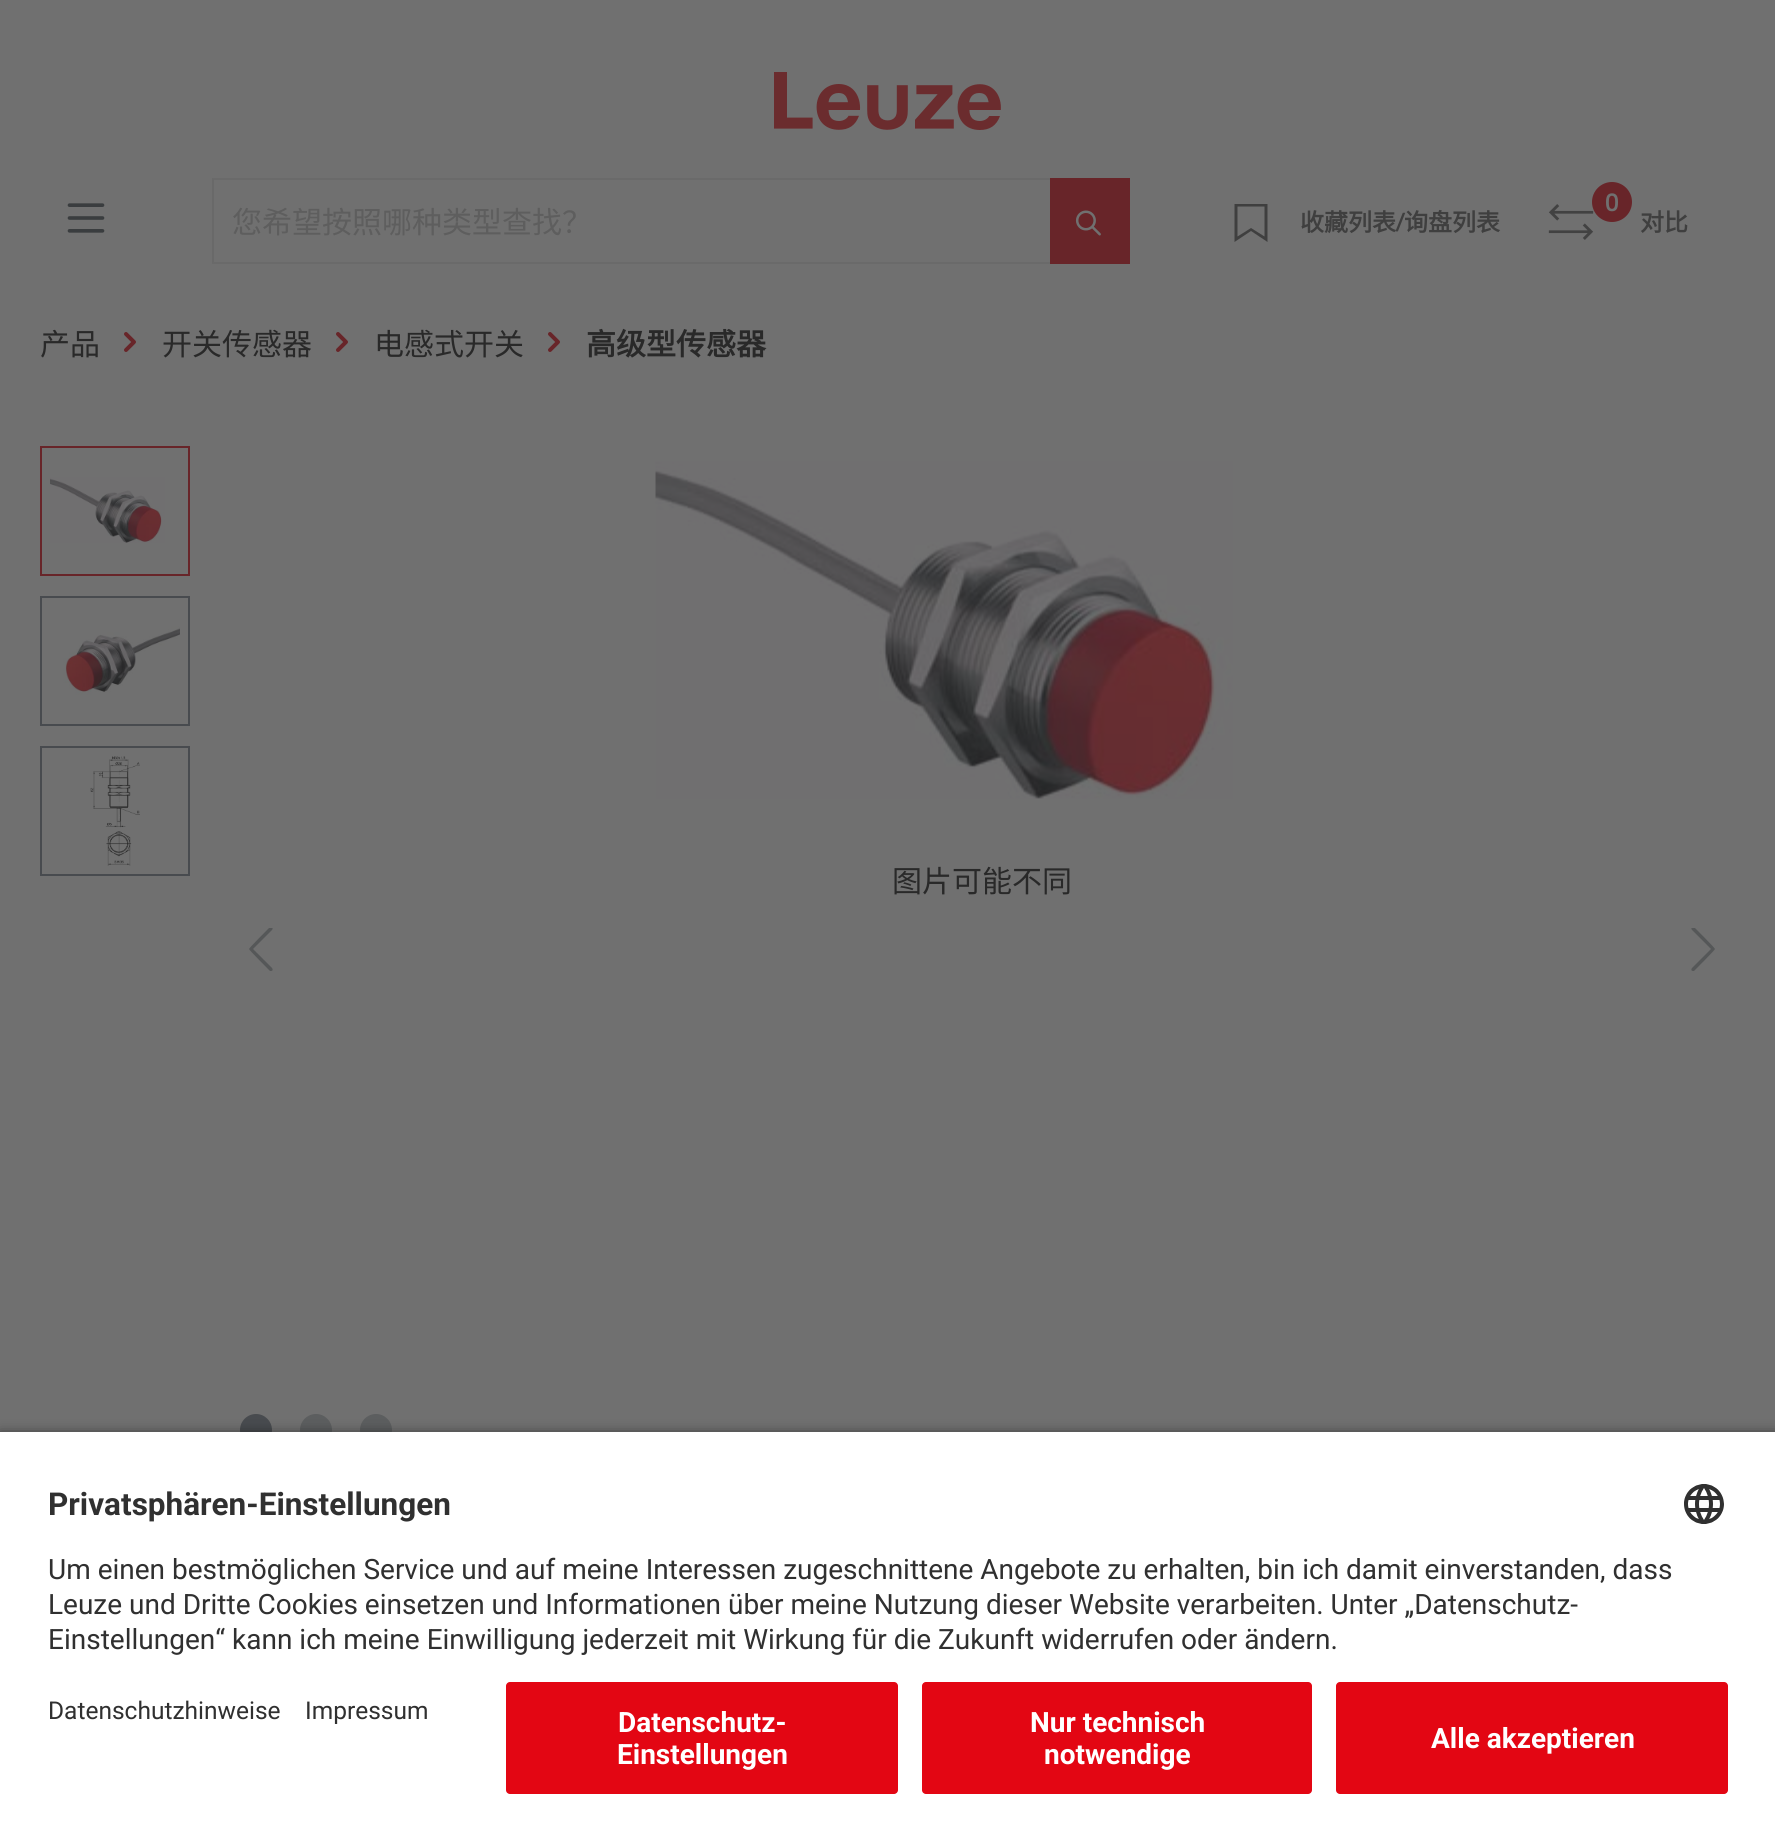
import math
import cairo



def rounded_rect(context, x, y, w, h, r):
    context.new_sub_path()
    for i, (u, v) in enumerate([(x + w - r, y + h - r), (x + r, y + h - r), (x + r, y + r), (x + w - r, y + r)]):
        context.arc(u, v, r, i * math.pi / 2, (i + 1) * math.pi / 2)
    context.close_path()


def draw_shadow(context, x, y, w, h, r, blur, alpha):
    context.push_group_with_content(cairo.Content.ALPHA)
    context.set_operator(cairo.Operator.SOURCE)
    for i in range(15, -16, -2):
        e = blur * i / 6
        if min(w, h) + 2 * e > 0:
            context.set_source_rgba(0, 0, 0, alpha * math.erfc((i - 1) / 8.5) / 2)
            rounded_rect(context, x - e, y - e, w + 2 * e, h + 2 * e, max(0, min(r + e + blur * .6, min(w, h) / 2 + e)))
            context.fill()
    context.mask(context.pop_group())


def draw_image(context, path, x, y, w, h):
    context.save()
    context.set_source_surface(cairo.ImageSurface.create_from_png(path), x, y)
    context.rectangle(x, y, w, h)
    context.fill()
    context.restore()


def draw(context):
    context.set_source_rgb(112 / 255, 112 / 255, 112 / 255)
    context.paint()
    draw_image(context, "images/1.png", 774, 72, 227, 58)
    draw_image(context, "images/2.png", 67, 203, 38, 30)
    context.set_source_rgb(106 / 255, 106 / 255, 106 / 255)
    context.new_path()
    context.move_to(212, 178)
    context.line_to(1052, 178)
    context.line_to(1052, 180)
    context.line_to(214, 180)
    context.close_path()
    context.fill()
    context.new_path()
    context.move_to(1052, 264)
    context.line_to(212, 264)
    context.line_to(214, 262)
    context.line_to(1052, 262)
    context.close_path()
    context.fill()
    context.set_source_rgba(36 / 255, 36 / 255, 36 / 255, 0.08)
    context.new_path()
    context.move_to(212, 264)
    context.line_to(212, 178)
    context.line_to(214, 180)
    context.line_to(214, 262)
    context.close_path()
    context.fill()
    context.set_source_rgb(104 / 255, 37 / 255, 41 / 255)
    context.rectangle(1050, 178, 80, 86)
    context.fill()
    draw_image(context, "images/3.png", 1075, 210, 26, 26)
    context.set_source_rgb(63 / 255, 63 / 255, 63 / 255)
    context.new_path()
    context.move_to(1264.5, 206.5)
    context.line_to(1264.5, 236.5)
    context.line_to(1251, 228)
    context.line_to(1237.5, 236.5)
    context.line_to(1237.5, 206.5)
    context.line_to(1264.5, 206.5)
    context.move_to(1267.5, 204)
    context.line_to(1234.5, 204)
    context.line_to(1234.5, 242)
    context.line_to(1251, 231)
    context.line_to(1267.5, 242)
    context.close_path()
    context.fill()
    draw_image(context, "images/4.png", 1548, 204, 46, 36)
    context.set_source_rgb(104 / 255, 37 / 255, 41 / 255)
    context.arc(1612, 202, 20, 0, 2 * math.pi)
    context.fill()
    draw_image(context, "images/5.png", 124, 332, 12, 20)
    draw_image(context, "images/5.png", 336, 332, 12, 20)
    draw_image(context, "images/5.png", 548, 332, 12, 20)
    context.rectangle(41, 447, 148, 128)
    context.stroke()
    draw_image(context, "images/6.png", 50, 477, 115, 66)
    context.rectangle(41, 597, 148, 128)
    context.set_source_rgb(72 / 255, 75 / 255, 79 / 255)
    context.stroke()
    draw_image(context, "images/7.png", 63, 626, 117, 69)
    context.rectangle(41, 747, 148, 128)
    context.stroke()
    draw_image(context, "images/8.png", 90, 756, 50, 110)
    draw_image(context, "images/9.png", 655, 461, 578, 338)
    context.save()
    context.rectangle(238, 928, 44, 44)
    context.clip()
    context.set_source_rgb(85 / 255, 87 / 255, 88 / 255)
    context.set_fill_rule(cairo.FillRule.EVEN_ODD)
    context.new_path()
    context.move_to(253, 949)
    context.line_to(272, 968)
    context.curve_to(273, 969, 273, 971, 271, 971)
    context.line_to(270, 971)
    context.curve_to(268, 969, 249, 950, 249, 949)
    context.curve_to(249, 948, 268, 929, 270, 927)
    context.line_to(271, 927)
    context.curve_to(273, 927, 273, 929, 272, 930)
    context.close_path()
    context.fill()
    context.restore()
    context.save()
    context.rectangle(1682, 928, 44, 44)
    context.clip()
    context.set_source_rgb(85 / 255, 87 / 255, 88 / 255)
    context.set_fill_rule(cairo.FillRule.EVEN_ODD)
    context.new_path()
    context.move_to(1711, 949)
    context.line_to(1692, 968)
    context.curve_to(1691, 969, 1691, 971, 1693, 971)
    context.line_to(1694, 971)
    context.curve_to(1696, 969, 1715, 950, 1715, 949)
    context.curve_to(1715, 948, 1696, 929, 1694, 927)
    context.line_to(1693, 927)
    context.curve_to(1691, 927, 1691, 929, 1692, 930)
    context.close_path()
    context.fill()
    context.restore()
    context.arc(256, 1430, 16, 0, 2 * math.pi)
    context.fill()
    context.set_source_rgb(92 / 255, 94 / 255, 95 / 255)
    context.arc(316, 1430, 16, 0, 2 * math.pi)
    context.fill()
    context.arc(376, 1430, 16, 0, 2 * math.pi)
    context.fill()
    context.set_source_rgb(0, 0, 0)
    draw_shadow(context, 0, 1436, 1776, 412, 0, 7, 0.8)
    context.set_source_rgb(1, 1, 1)
    context.rectangle(0, 1432, 1775, 410)
    context.fill()
    draw_image(context, "images/10.png", 1684, 1484, 40, 40)
    context.set_source_rgb(227 / 255, 6 / 255, 19 / 255)
    rounded_rect(context, 506, 1682, 392, 112, 4)
    context.fill()
    rounded_rect(context, 922, 1682, 390, 112, 4)
    context.fill()
    rounded_rect(context, 1336, 1682, 392, 112, 4)
    context.fill()
    context.select_font_face("Noto Sans CJK SC")
    context.set_font_size(30)
    context.set_source_rgb(94 / 255, 94 / 255, 94 / 255)
    context.move_to(232, 233)
    context.show_text("您希望按照哪种类型查找？")
    context.select_font_face("Noto Sans CJK SC", cairo.FontSlant.NORMAL, cairo.FontWeight.BOLD)
    context.set_font_size(24)
    context.set_source_rgb(63 / 255, 63 / 255, 63 / 255)
    context.move_to(1300, 231)
    context.show_text("收藏列表")
    context.select_font_face("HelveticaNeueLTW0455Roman", cairo.FontSlant.NORMAL, cairo.FontWeight.BOLD)
    context.move_to(1396, 231)
    context.show_text("/")
    context.select_font_face("Noto Sans CJK SC", cairo.FontSlant.NORMAL, cairo.FontWeight.BOLD)
    context.move_to(1404, 231)
    context.show_text("询盘列表")
    context.select_font_face("HelveticaNeueLTW0455Roman", cairo.FontSlant.NORMAL, cairo.FontWeight.BOLD)
    context.set_source_rgb(112 / 255, 112 / 255, 112 / 255)
    context.move_to(1605, 211)
    context.show_text("0")
    context.select_font_face("Noto Sans CJK SC", cairo.FontSlant.NORMAL, cairo.FontWeight.BOLD)
    context.set_source_rgb(63 / 255, 63 / 255, 63 / 255)
    context.move_to(1640, 231)
    context.show_text("对比")
    context.select_font_face("Noto Sans CJK SC")
    context.set_font_size(30)
    context.set_source_rgb(41 / 255, 41 / 255, 41 / 255)
    context.move_to(40, 355)
    context.show_text("产品")
    context.move_to(162, 355)
    context.show_text("开关传感器")
    context.move_to(374, 355)
    context.show_text("电感式开关")
    context.select_font_face("Noto Sans CJK SC", cairo.FontSlant.NORMAL, cairo.FontWeight.BOLD)
    context.move_to(586, 355)
    context.show_text("高级型传感器")
    context.select_font_face("Noto Sans CJK SC")
    context.move_to(892, 892)
    context.show_text("图片可能不同")
    context.select_font_face("Roboto", cairo.FontSlant.NORMAL, cairo.FontWeight.BOLD)
    context.set_font_size(31.5)
    context.set_source_rgb(48 / 255, 48 / 255, 48 / 255)
    context.move_to(48, 1515)
    context.show_text("Privatsphären-Einstellungen")
    context.select_font_face("Roboto")
    context.set_font_size(28)
    context.move_to(48, 1579)
    context.show_text("Um einen bestmöglichen Service und auf meine Interessen zugeschnittene Angebote zu erhalten, bin ich damit einverstanden, dass")
    context.move_to(48, 1614)
    context.show_text("Leuze und Dritte Cookies einsetzen und Informationen über meine Nutzung dieser Website verarbeiten. Unter „Datenschutz-")
    context.move_to(48, 1649)
    context.show_text("Einstellungen“ kann ich meine Einwilligung jederzeit mit Wirkung für die Zukunft widerrufen oder ändern.")
    context.set_font_size(24.5)
    context.move_to(48, 1719)
    context.show_text("Datenschutzhinweise")
    context.move_to(305, 1719)
    context.show_text("Impressum")
    context.select_font_face("Roboto", cairo.FontSlant.NORMAL, cairo.FontWeight.BOLD)
    context.set_font_size(28)
    context.set_source_rgb(1, 1, 1)
    context.move_to(618, 1732)
    context.show_text("Datenschutz-")
    context.move_to(617, 1764)
    context.show_text("Einstellungen")
    context.move_to(1030, 1732)
    context.show_text("Nur technisch")
    context.move_to(1044, 1764)
    context.show_text("notwendige")
    context.move_to(1431, 1748)
    context.show_text("Alle akzeptieren")


surface = cairo.ImageSurface(cairo.Format.RGB24, 1775, 1842)
context = cairo.Context(surface)
options = cairo.FontOptions()
options.set_hint_metrics(cairo.HintMetrics.OFF)
options.set_hint_style(cairo.HintStyle.NONE)
context.set_font_options(options)
context.set_miter_limit(4)
draw(context)
surface.write_to_png("out.png")
